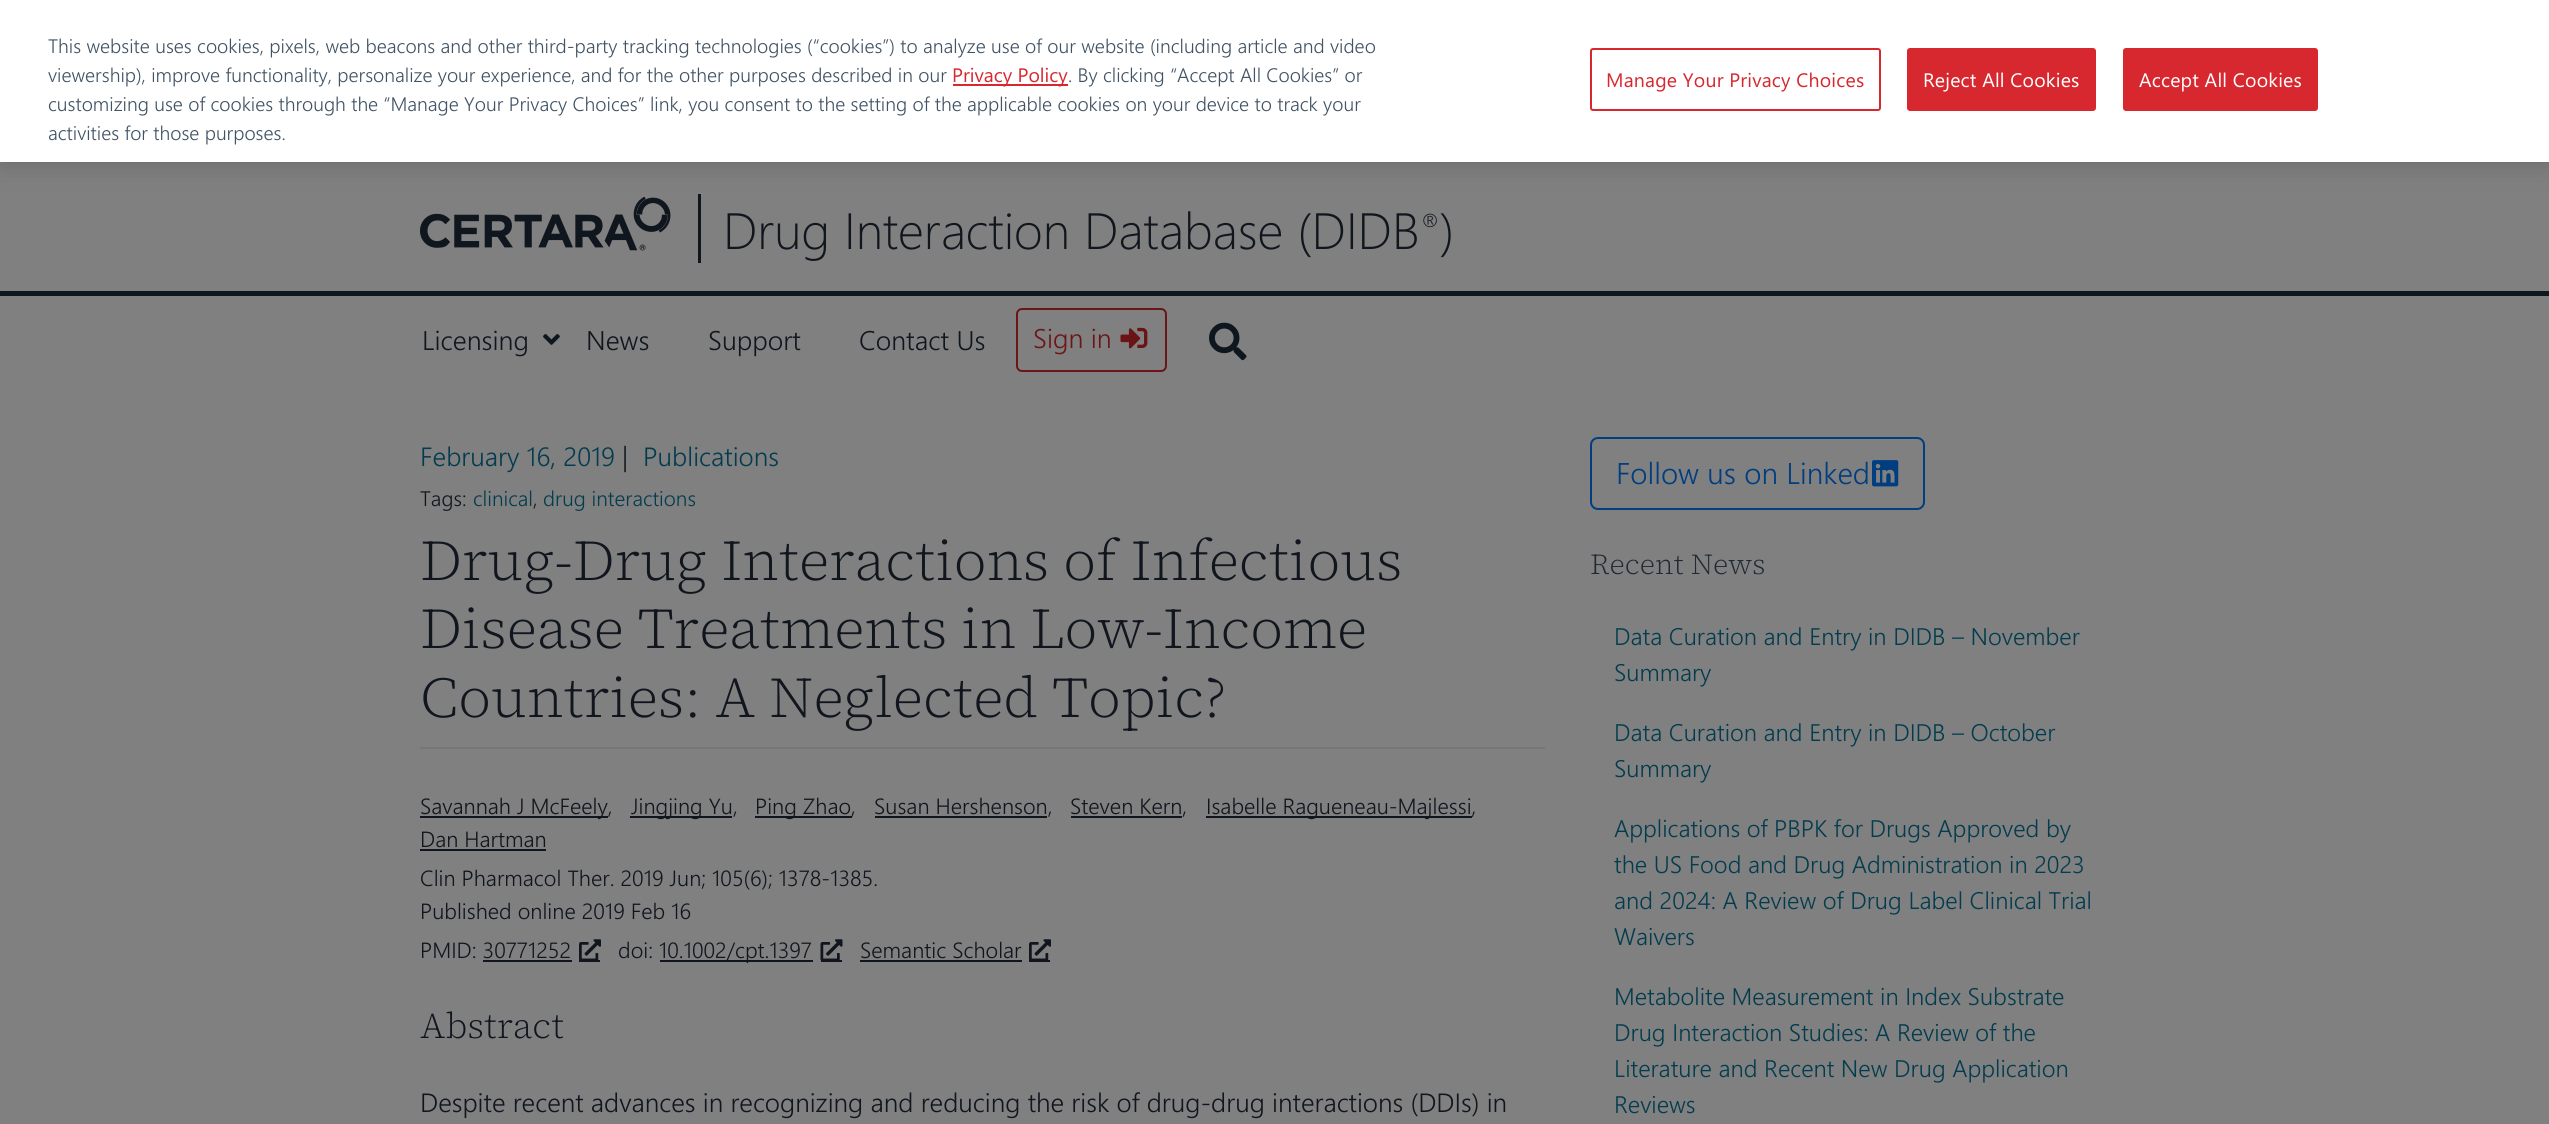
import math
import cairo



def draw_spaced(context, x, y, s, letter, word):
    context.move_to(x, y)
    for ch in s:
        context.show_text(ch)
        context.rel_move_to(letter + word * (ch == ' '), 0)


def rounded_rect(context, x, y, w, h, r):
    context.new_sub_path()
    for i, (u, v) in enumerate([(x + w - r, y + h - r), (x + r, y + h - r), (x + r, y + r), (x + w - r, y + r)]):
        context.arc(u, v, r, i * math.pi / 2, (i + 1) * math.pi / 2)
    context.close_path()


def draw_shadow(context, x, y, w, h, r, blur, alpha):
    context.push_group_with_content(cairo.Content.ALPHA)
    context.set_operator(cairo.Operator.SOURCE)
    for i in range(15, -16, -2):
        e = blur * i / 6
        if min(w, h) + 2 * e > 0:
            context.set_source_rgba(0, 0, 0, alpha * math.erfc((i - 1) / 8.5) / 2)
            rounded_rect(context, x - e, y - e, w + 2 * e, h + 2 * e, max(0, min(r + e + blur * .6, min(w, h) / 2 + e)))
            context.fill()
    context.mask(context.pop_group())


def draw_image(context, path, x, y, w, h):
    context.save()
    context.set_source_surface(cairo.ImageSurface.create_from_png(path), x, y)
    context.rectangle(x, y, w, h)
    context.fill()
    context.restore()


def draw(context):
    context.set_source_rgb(128 / 255, 128 / 255, 128 / 255)
    context.paint()
    draw_image(context, "images/1.png", 420, 197, 251, 54)
    context.set_source_rgb(17 / 255, 22 / 255, 30 / 255)
    context.rectangle(698, 194, 3, 69)
    context.fill()
    context.set_source_rgb(0, 0, 0)
    draw_shadow(context, 0, 0, 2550, 162, 0, 13.5, 0.2)
    context.set_source_rgb(1, 1, 1)
    context.rectangle(0, 0, 2549, 162)
    context.fill()
    context.set_source_rgb(215 / 255, 40 / 255, 47 / 255)
    context.rectangle(953, 84, 115, 2)
    context.fill()
    rounded_rect(context, 1591, 49, 289, 61, 2)
    context.stroke()
    rounded_rect(context, 1908, 49, 187, 61, 2)
    context.fill_preserve()
    context.stroke()
    rounded_rect(context, 2124, 49, 193, 61, 2)
    context.fill_preserve()
    context.stroke()
    context.set_source_rgb(16 / 255, 22 / 255, 29 / 255)
    context.rectangle(0, 291, 2549, 5)
    context.fill()
    draw_image(context, "images/2.png", 543, 334, 17, 11)
    rounded_rect(context, 1017, 309, 149, 62, 5)
    context.set_source_rgb(107 / 255, 21 / 255, 23 / 255)
    context.stroke()
    draw_image(context, "images/3.png", 1120, 327, 28, 22)
    draw_image(context, "images/4.png", 1209, 322, 38, 39)
    context.set_source_rgb(117 / 255, 118 / 255, 120 / 255)
    context.rectangle(420, 747, 1125, 2)
    context.fill()
    context.set_source_rgb(17 / 255, 22 / 255, 30 / 255)
    context.rectangle(420, 816, 188, 2)
    context.fill()
    context.rectangle(630, 816, 102, 2)
    context.fill()
    context.rectangle(755, 816, 97, 2)
    context.fill()
    context.rectangle(875, 816, 172, 2)
    context.fill()
    context.rectangle(1071, 816, 111, 2)
    context.fill()
    context.rectangle(1206, 816, 266, 2)
    context.fill()
    context.rectangle(420, 849, 126, 2)
    context.fill()
    draw_image(context, "images/5.png", 579, 939, 22, 21)
    context.rectangle(483, 960, 89, 2)
    context.fill()
    context.rectangle(579, 960, 21, 2)
    context.fill()
    context.rectangle(660, 960, 153, 2)
    context.fill()
    context.rectangle(821, 960, 21, 2)
    context.fill()
    draw_image(context, "images/6.png", 820, 939, 23, 22)
    context.rectangle(860, 960, 162, 2)
    context.fill()
    context.rectangle(1029, 960, 21, 2)
    context.fill()
    draw_image(context, "images/5.png", 1029, 939, 22, 21)
    rounded_rect(context, 1591, 438, 333, 71, 7)
    context.set_source_rgb(0, 62 / 255, 128 / 255)
    context.stroke()
    draw_image(context, "images/7.png", 1872, 460, 27, 27)
    context.select_font_face("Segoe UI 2 Light")
    context.set_font_size(19.5)
    context.set_source_rgb(65 / 255, 83 / 255, 100 / 255)
    context.move_to(48, 53)
    context.show_text("This website uses cookies, pixels, web beacons and other third-party tracking technologies (“cookies”) to analyze use of our website (including article and video")
    context.move_to(48, 82)
    context.show_text("viewership), improve functionality, personalize your experience, and for the other purposes described in our")
    context.select_font_face("Segoe UI")
    context.set_source_rgb(215 / 255, 40 / 255, 47 / 255)
    context.move_to(952, 82)
    context.show_text("Privacy Policy")
    context.select_font_face("Segoe UI 2 Light")
    context.set_source_rgb(65 / 255, 83 / 255, 100 / 255)
    context.move_to(1068, 82)
    context.show_text(". By clicking “Accept All Cookies” or")
    context.move_to(48, 111)
    context.show_text("customizing use of cookies through the “Manage Your Privacy Choices” link, you consent to the setting of the applicable cookies on your device to track your")
    context.move_to(48, 140)
    context.show_text("activities for those purposes.")
    context.select_font_face("Segoe UI")
    context.set_source_rgb(215 / 255, 40 / 255, 47 / 255)
    draw_spaced(context, 1606, 87, "Manage Your Privacy Choices", 0.2, 0)
    context.set_source_rgb(1, 1, 1)
    draw_spaced(context, 1923, 87, "Reject All Cookies", 0.2, 0)
    draw_spaced(context, 2139, 87, "Accept All Cookies", 0.2, 0)
    context.select_font_face("Segoe UI Light")
    context.set_font_size(51)
    context.set_source_rgb(17 / 255, 22 / 255, 30 / 255)
    context.move_to(723, 249)
    context.show_text("Drug Interaction Database (DIDB")
    context.set_font_size(23)
    context.move_to(1420, 230)
    context.show_text("®")
    context.set_font_size(51)
    context.move_to(1440, 249)
    context.show_text(")")
    context.select_font_face("Segoe UI 2 Light")
    context.set_font_size(27)
    context.move_to(422, 350)
    context.show_text("Licensing")
    context.move_to(586, 350)
    context.show_text("News")
    context.move_to(708, 350)
    context.show_text("Support")
    context.move_to(859, 350)
    context.show_text("Contact Us")
    context.set_source_rgb(107 / 255, 21 / 255, 23 / 255)
    context.move_to(1033, 348)
    context.show_text("Sign in")
    context.set_font_size(26.4)
    context.set_source_rgb(2 / 255, 60 / 255, 78 / 255)
    context.move_to(420, 466)
    context.show_text("February 16, 2019")
    context.set_source_rgb(17 / 255, 22 / 255, 30 / 255)
    context.move_to(622, 466)
    context.show_text("|")
    context.set_source_rgb(2 / 255, 60 / 255, 78 / 255)
    context.move_to(643, 466)
    context.show_text("Publications")
    context.set_font_size(21)
    context.set_source_rgb(17 / 255, 22 / 255, 30 / 255)
    context.move_to(420, 506)
    context.show_text("Tags:")
    context.set_source_rgb(2 / 255, 60 / 255, 78 / 255)
    context.move_to(473, 506)
    context.show_text("clinical")
    context.set_source_rgb(17 / 255, 22 / 255, 30 / 255)
    context.move_to(533, 506)
    context.show_text(",")
    context.set_source_rgb(2 / 255, 60 / 255, 78 / 255)
    context.move_to(543, 506)
    context.show_text("drug interactions")
    context.select_font_face("Source Serif 4 Light")
    context.set_font_size(57)
    context.set_source_rgb(17 / 255, 22 / 255, 30 / 255)
    context.move_to(420, 580)
    context.show_text("Drug-Drug Interactions of Infectious")
    context.move_to(420, 648)
    context.show_text("Disease Treatments in Low-Income")
    context.move_to(420, 717)
    context.show_text("Countries: A Neglected Topic?")
    context.select_font_face("Segoe UI 2 Light")
    context.set_font_size(22)
    context.move_to(420, 814)
    context.show_text("Savannah J McFeely,")
    context.move_to(631, 814)
    context.show_text("Jingjing Yu,")
    context.move_to(755, 814)
    context.show_text("Ping Zhao,")
    context.move_to(874, 814)
    context.show_text("Susan Hershenson,")
    context.move_to(1070, 814)
    context.show_text("Steven Kern,")
    context.move_to(1206, 814)
    context.show_text("Isabelle Ragueneau-Majlessi,")
    context.move_to(420, 847)
    context.show_text("Dan Hartman")
    context.move_to(420, 886)
    context.show_text("Clin Pharmacol Ther. 2019 Jun; 105(6); 1378-1385.")
    context.move_to(420, 919)
    context.show_text("Published online 2019 Feb 16")
    context.move_to(420, 958)
    context.show_text("PMID: 30771252")
    context.move_to(618, 958)
    context.show_text("doi:")
    context.move_to(659, 958)
    context.show_text("10.1002/cpt.1397")
    context.move_to(860, 958)
    context.show_text("Semantic Scholar")
    context.select_font_face("Source Serif 4 Light")
    context.set_font_size(36)
    context.move_to(420, 1038)
    context.show_text("Abstract")
    context.select_font_face("Segoe UI 2 Light")
    context.set_font_size(26.4)
    context.move_to(420, 1112)
    context.show_text("Despite recent advances in recognizing and reducing the risk of drug-drug interactions (DDIs) in")
    context.set_font_size(30)
    context.set_source_rgb(0, 62 / 255, 128 / 255)
    context.move_to(1616, 484)
    context.show_text("Follow us on Linked")
    context.select_font_face("Source Serif 4 Light")
    context.set_font_size(28.75)
    context.set_source_rgb(33 / 255, 42 / 255, 50 / 255)
    context.move_to(1590, 574)
    context.show_text("Recent News")
    context.select_font_face("Segoe UI 2 Light")
    context.set_font_size(24)
    context.set_source_rgb(2 / 255, 60 / 255, 78 / 255)
    context.move_to(1614, 645)
    context.show_text("Data Curation and Entry in DIDB – November")
    context.move_to(1614, 681)
    context.show_text("Summary")
    context.move_to(1614, 741)
    context.show_text("Data Curation and Entry in DIDB – October")
    context.move_to(1614, 777)
    context.show_text("Summary")
    context.move_to(1614, 837)
    context.show_text("Applications of PBPK for Drugs Approved by")
    context.move_to(1614, 873)
    context.show_text("the US Food and Drug Administration in 2023")
    context.move_to(1614, 909)
    context.show_text("and 2024: A Review of Drug Label Clinical Trial")
    context.move_to(1614, 945)
    context.show_text("Waivers")
    context.move_to(1614, 1005)
    context.show_text("Metabolite Measurement in Index Substrate")
    context.move_to(1614, 1041)
    context.show_text("Drug Interaction Studies: A Review of the")
    context.move_to(1614, 1077)
    context.show_text("Literature and Recent New Drug Application")
    context.move_to(1614, 1113)
    context.show_text("Reviews")


surface = cairo.ImageSurface(cairo.Format.RGB24, 2549, 1124)
context = cairo.Context(surface)
options = cairo.FontOptions()
options.set_hint_metrics(cairo.HintMetrics.OFF)
options.set_hint_style(cairo.HintStyle.NONE)
context.set_font_options(options)
context.set_miter_limit(4)
draw(context)
surface.write_to_png("out.png")
